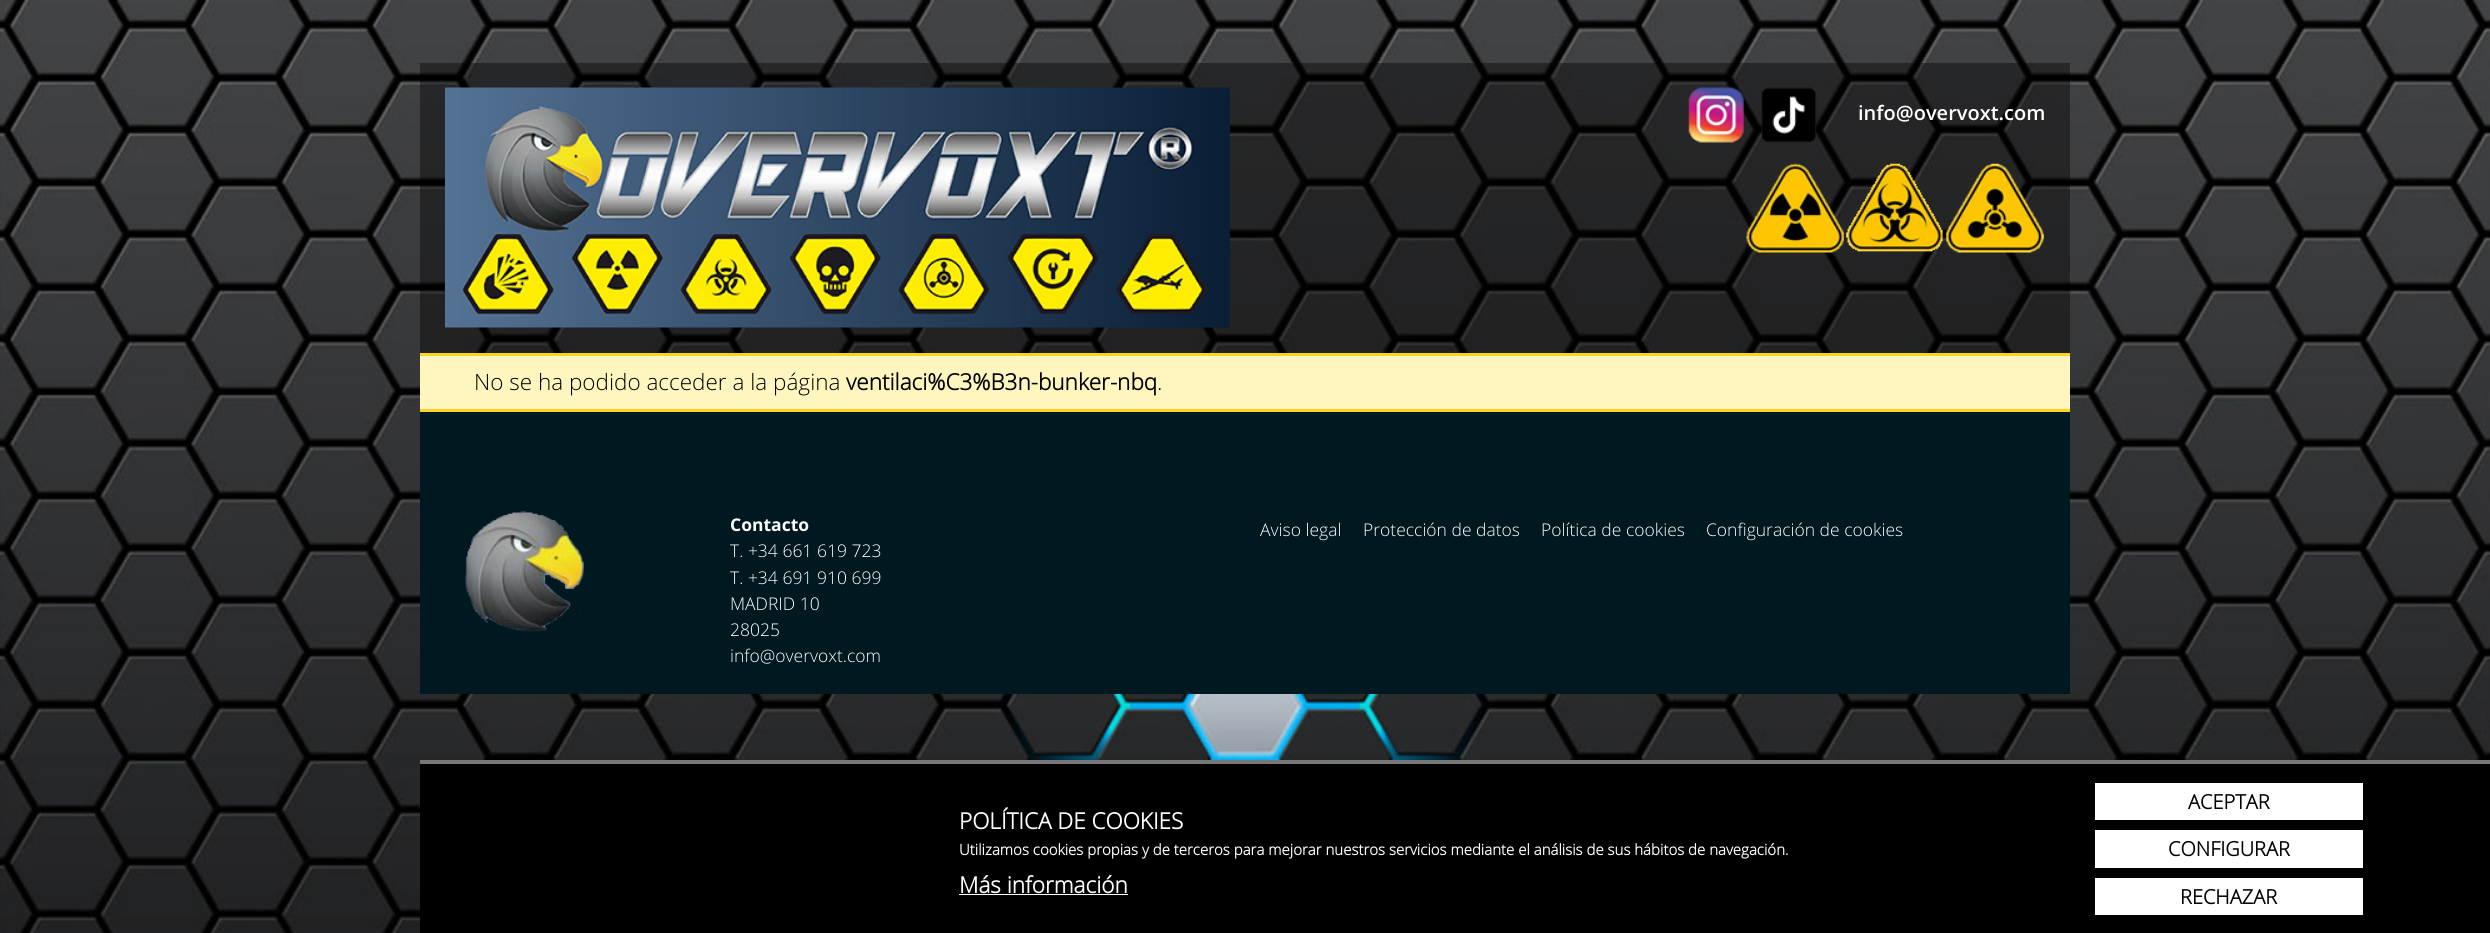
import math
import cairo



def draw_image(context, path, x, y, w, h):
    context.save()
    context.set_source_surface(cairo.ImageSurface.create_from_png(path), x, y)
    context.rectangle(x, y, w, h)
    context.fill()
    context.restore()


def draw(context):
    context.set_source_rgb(1, 1, 1)
    context.paint()
    draw_image(context, "images/1.png", 0, 0, 2490, 933)
    context.set_source_rgba(0, 0, 0, 0.4)
    context.rectangle(420, 63, 1650, 290)
    context.fill()
    draw_image(context, "images/2.png", 445, 87, 785, 241)
    draw_image(context, "images/3.png", 1688, 87, 56, 56)
    draw_image(context, "images/4.png", 1761, 87, 56, 56)
    draw_image(context, "images/5.png", 1746, 163, 98, 90)
    draw_image(context, "images/6.png", 1846, 163, 97, 89)
    draw_image(context, "images/7.png", 1946, 163, 98, 90)
    context.set_source_rgb(1, 246 / 255, 191 / 255)
    context.rectangle(420, 356, 1650, 53)
    context.fill()
    context.set_source_rgb(1, 211 / 255, 36 / 255)
    context.rectangle(420, 353, 1650, 3)
    context.fill()
    context.rectangle(420, 409, 1650, 3)
    context.fill()
    context.set_source_rgb(0, 24 / 255, 32 / 255)
    context.rectangle(420, 412, 1650, 282)
    context.fill()
    draw_image(context, "images/8.png", 465, 511, 119, 121)
    context.set_source_rgb(0, 0, 0)
    context.rectangle(420, 764, 2070, 169)
    context.fill()
    context.set_source_rgb(119 / 255, 119 / 255, 119 / 255)
    context.rectangle(420, 760, 2070, 4)
    context.fill()
    context.set_source_rgb(1, 1, 1)
    context.rectangle(959, 894, 169, 1)
    context.fill()
    context.rectangle(2095, 783, 268, 37)
    context.fill()
    context.rectangle(2095, 830, 268, 38)
    context.fill()
    context.rectangle(2095, 878, 268, 37)
    context.fill()
    context.select_font_face("Open Sans SemiBold")
    context.set_font_size(20)
    context.move_to(1858, 120)
    context.show_text("info@overvoxt.com")
    context.select_font_face("Open Sans Light")
    context.set_font_size(22.5)
    context.set_source_rgb(0, 0, 0)
    context.move_to(474, 390)
    context.show_text("No se ha podido acceder a la página")
    context.select_font_face("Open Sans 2", cairo.FontSlant.NORMAL, cairo.FontWeight.BOLD)
    context.move_to(846, 390)
    context.show_text("ventilaci%C3%B3n-bunker-nbq")
    context.select_font_face("Open Sans Light")
    context.move_to(1157, 390)
    context.show_text(".")
    context.select_font_face("Open Sans", cairo.FontSlant.NORMAL, cairo.FontWeight.BOLD)
    context.set_font_size(17.5)
    context.set_source_rgb(1, 1, 1)
    context.move_to(730, 531)
    context.show_text("Contacto")
    context.select_font_face("Open Sans Light")
    context.move_to(730, 557)
    context.show_text("T. +34 661 619 723")
    context.move_to(730, 584)
    context.show_text("T. +34 691 910 699")
    context.move_to(730, 610)
    context.show_text("MADRID 10")
    context.move_to(730, 636)
    context.show_text("28025")
    context.move_to(730, 662)
    context.show_text("info@overvoxt.com")
    context.move_to(1260, 536)
    context.show_text("Aviso legal")
    context.move_to(1363, 536)
    context.show_text("Protección de datos")
    context.move_to(1541, 536)
    context.show_text("Política de cookies")
    context.move_to(1706, 536)
    context.show_text("Configuración de cookies")
    context.select_font_face("Open Sans 2", cairo.FontSlant.NORMAL, cairo.FontWeight.BOLD)
    context.set_font_size(22.5)
    context.move_to(959, 829)
    context.show_text("POLÍTICA DE COOKIES")
    context.set_font_size(15)
    context.move_to(959, 855)
    context.show_text("Utilizamos cookies propias y de terceros para mejorar nuestros servicios mediante el análisis de sus hábitos de navegación.")
    context.set_font_size(22.5)
    context.move_to(959, 893)
    context.show_text("Más información")
    context.set_font_size(20)
    context.set_source_rgb(0, 0, 0)
    context.move_to(2188, 809)
    context.show_text("ACEPTAR")
    context.move_to(2168, 856)
    context.show_text("CONFIGURAR")
    context.move_to(2180, 904)
    context.show_text("RECHAZAR")


surface = cairo.ImageSurface(cairo.Format.RGB24, 2490, 933)
context = cairo.Context(surface)
options = cairo.FontOptions()
options.set_hint_metrics(cairo.HintMetrics.OFF)
options.set_hint_style(cairo.HintStyle.NONE)
context.set_font_options(options)
context.set_miter_limit(4)
draw(context)
surface.write_to_png("out.png")
